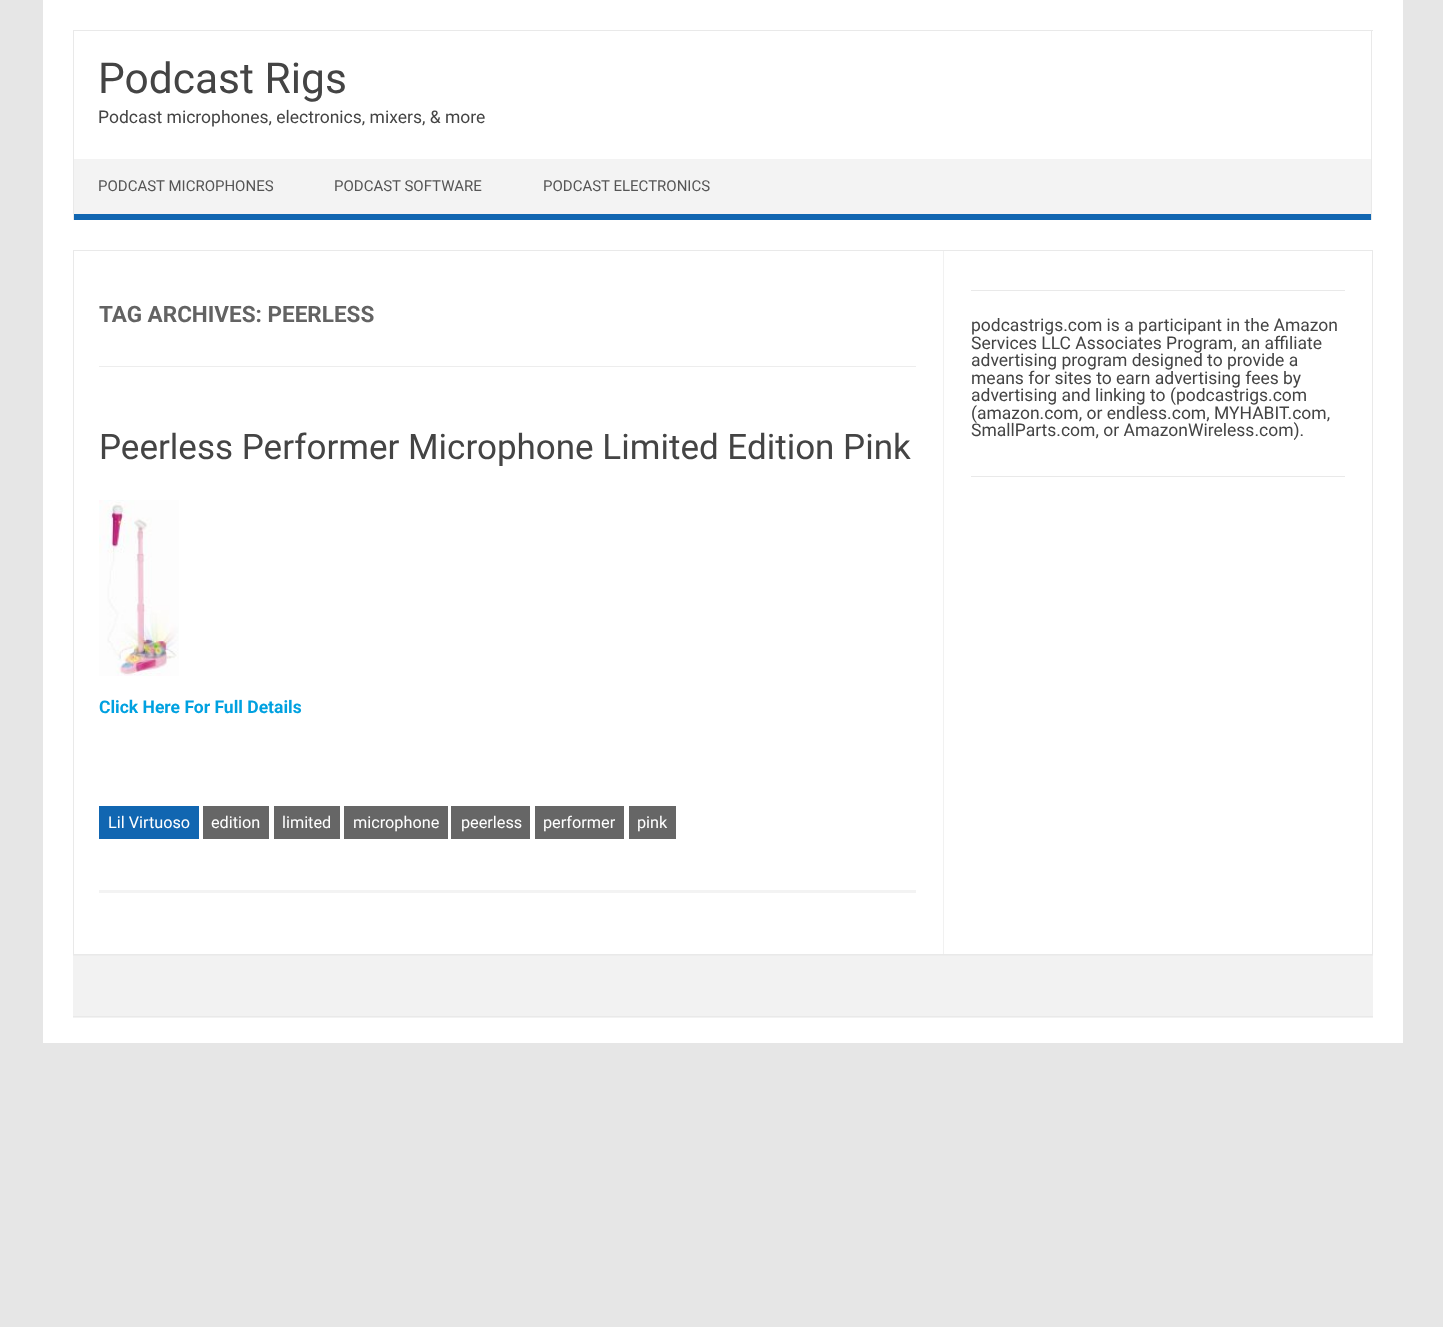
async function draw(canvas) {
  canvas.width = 1443
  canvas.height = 1327
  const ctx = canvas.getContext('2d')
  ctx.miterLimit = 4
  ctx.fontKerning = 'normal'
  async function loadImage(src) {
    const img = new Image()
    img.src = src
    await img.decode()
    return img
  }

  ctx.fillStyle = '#e6e6e6'
  ctx.fillRect(0, 0, 1443, 1327)
  ctx.fillStyle = '#fff'
  ctx.fillRect(43, 0, 1360, 1043)
  ctx.fillStyle = '#e9e9e9'
  ctx.fillRect(73, 30, 1300, 1)
  ctx.fillRect(1371, 30, 1, 190)
  ctx.fillRect(73, 30, 1, 190)
  ctx.font = '42.5px Roboto'
  ctx.fillStyle = '#444'
  ctx.fillText('Podcast Rigs', 98, 93)
  ctx.font = '17.5px Roboto'
  ctx.fillText('Podcast microphones, electronics, mixers, & more', 98, 123)
  ctx.fillStyle = '#f3f3f3'
  ctx.fillRect(74, 159, 1297, 55)
  ctx.fillStyle = '#1166b1'
  ctx.fillRect(74, 214, 1297, 6)
  ctx.font = '15px Roboto'
  ctx.fillStyle = '#555'
  ctx.fillText('PODCAST MICROPHONES', 98, 191)
  ctx.fillText('PODCAST SOFTWARE', 334, 191)
  ctx.fillText('PODCAST ELECTRONICS', 543, 191)
  ctx.strokeStyle = '#e9e9e9'
  ctx.strokeRect(73.5, 250.5, 1299, 704)
  ctx.fillStyle = '#f1f1f1'
  ctx.fillRect(943, 251, 1, 703)
  ctx.fillStyle = '#ededed'
  ctx.fillRect(99, 366, 817, 1)
  ctx.font = 'bold 22.5px Roboto'
  ctx.fillStyle = '#636363'
  ctx.fillText('TAG ARCHIVES: PEERLESS', 99, 322)
  ctx.fillStyle = '#f3f3f3'
  ctx.fillRect(99, 890, 817, 3)
  ctx.font = '35px Roboto'
  ctx.fillStyle = '#444'
  ctx.fillText('Peerless Performer Microphone Limited Edition Pink', 99, 459)
  ctx.drawImage(await loadImage('image0.png'), 99, 500, 80, 176)
  ctx.font = 'bold 17.5px Roboto'
  ctx.fillStyle = '#00a1e0'
  ctx.fillText('Click Here For Full Details', 99, 713)
  ctx.fillStyle = '#1166b1'
  ctx.fillRect(99, 806, 100, 33)
  ctx.font = '16.25px Roboto'
  ctx.fillStyle = '#fff'
  ctx.fillText('Lil Virtuoso', 108, 828)
  ctx.fillStyle = '#666'
  ctx.fillRect(203, 806, 66, 33)
  ctx.fillStyle = '#fff'
  ctx.fillText('edition', 211, 828)
  ctx.fillStyle = '#666'
  ctx.fillRect(274, 806, 66, 33)
  ctx.fillStyle = '#fff'
  ctx.fillText('limited', 282, 828)
  ctx.fillStyle = '#666'
  ctx.fillRect(344, 806, 104, 33)
  ctx.fillStyle = '#fff'
  ctx.fillText('microphone', 353, 828)
  ctx.fillStyle = '#666'
  ctx.fillRect(451, 806, 79, 33)
  ctx.fillStyle = '#fff'
  ctx.fillText('peerless', 461, 828)
  ctx.fillStyle = '#666'
  ctx.fillRect(535, 806, 89, 33)
  ctx.fillStyle = '#fff'
  ctx.fillText('performer', 543, 828)
  ctx.fillStyle = '#666'
  ctx.fillRect(629, 806, 47, 33)
  ctx.fillStyle = '#fff'
  ctx.fillText('pink', 637, 828)
  ctx.fillStyle = '#e9e9e9'
  ctx.fillRect(971, 290, 374, 1)
  ctx.font = '17.5px Roboto'
  ctx.fillStyle = '#444'
  ctx.fillText('podcastrigs.com is a participant in the Amazon', 971, 331)
  ctx.fillText('Services LLC Associates Program, an affiliate', 971, 349)
  ctx.fillText('advertising program designed to provide a', 971, 366)
  ctx.fillText('means for sites to earn advertising fees by', 971, 384)
  ctx.fillText('advertising and linking to (podcastrigs.com', 971, 401)
  ctx.fillText('(amazon.com, or endless.com, MYHABIT.com,', 971, 419)
  ctx.fillText('SmallParts.com, or AmazonWireless.com).', 971, 436)
  ctx.fillStyle = '#e9e9e9'
  ctx.fillRect(971, 476, 374, 1)
  ctx.fillStyle = '#f2f2f2'
  ctx.fillRect(73, 956, 1300, 62)
  ctx.fillStyle = '#ededed'
  ctx.fillRect(73, 955, 1300, 1)
  ctx.fillStyle = '#e9e9e9'
  ctx.fillRect(73, 1016, 1300, 1)
}

draw(document.querySelector('canvas'))
